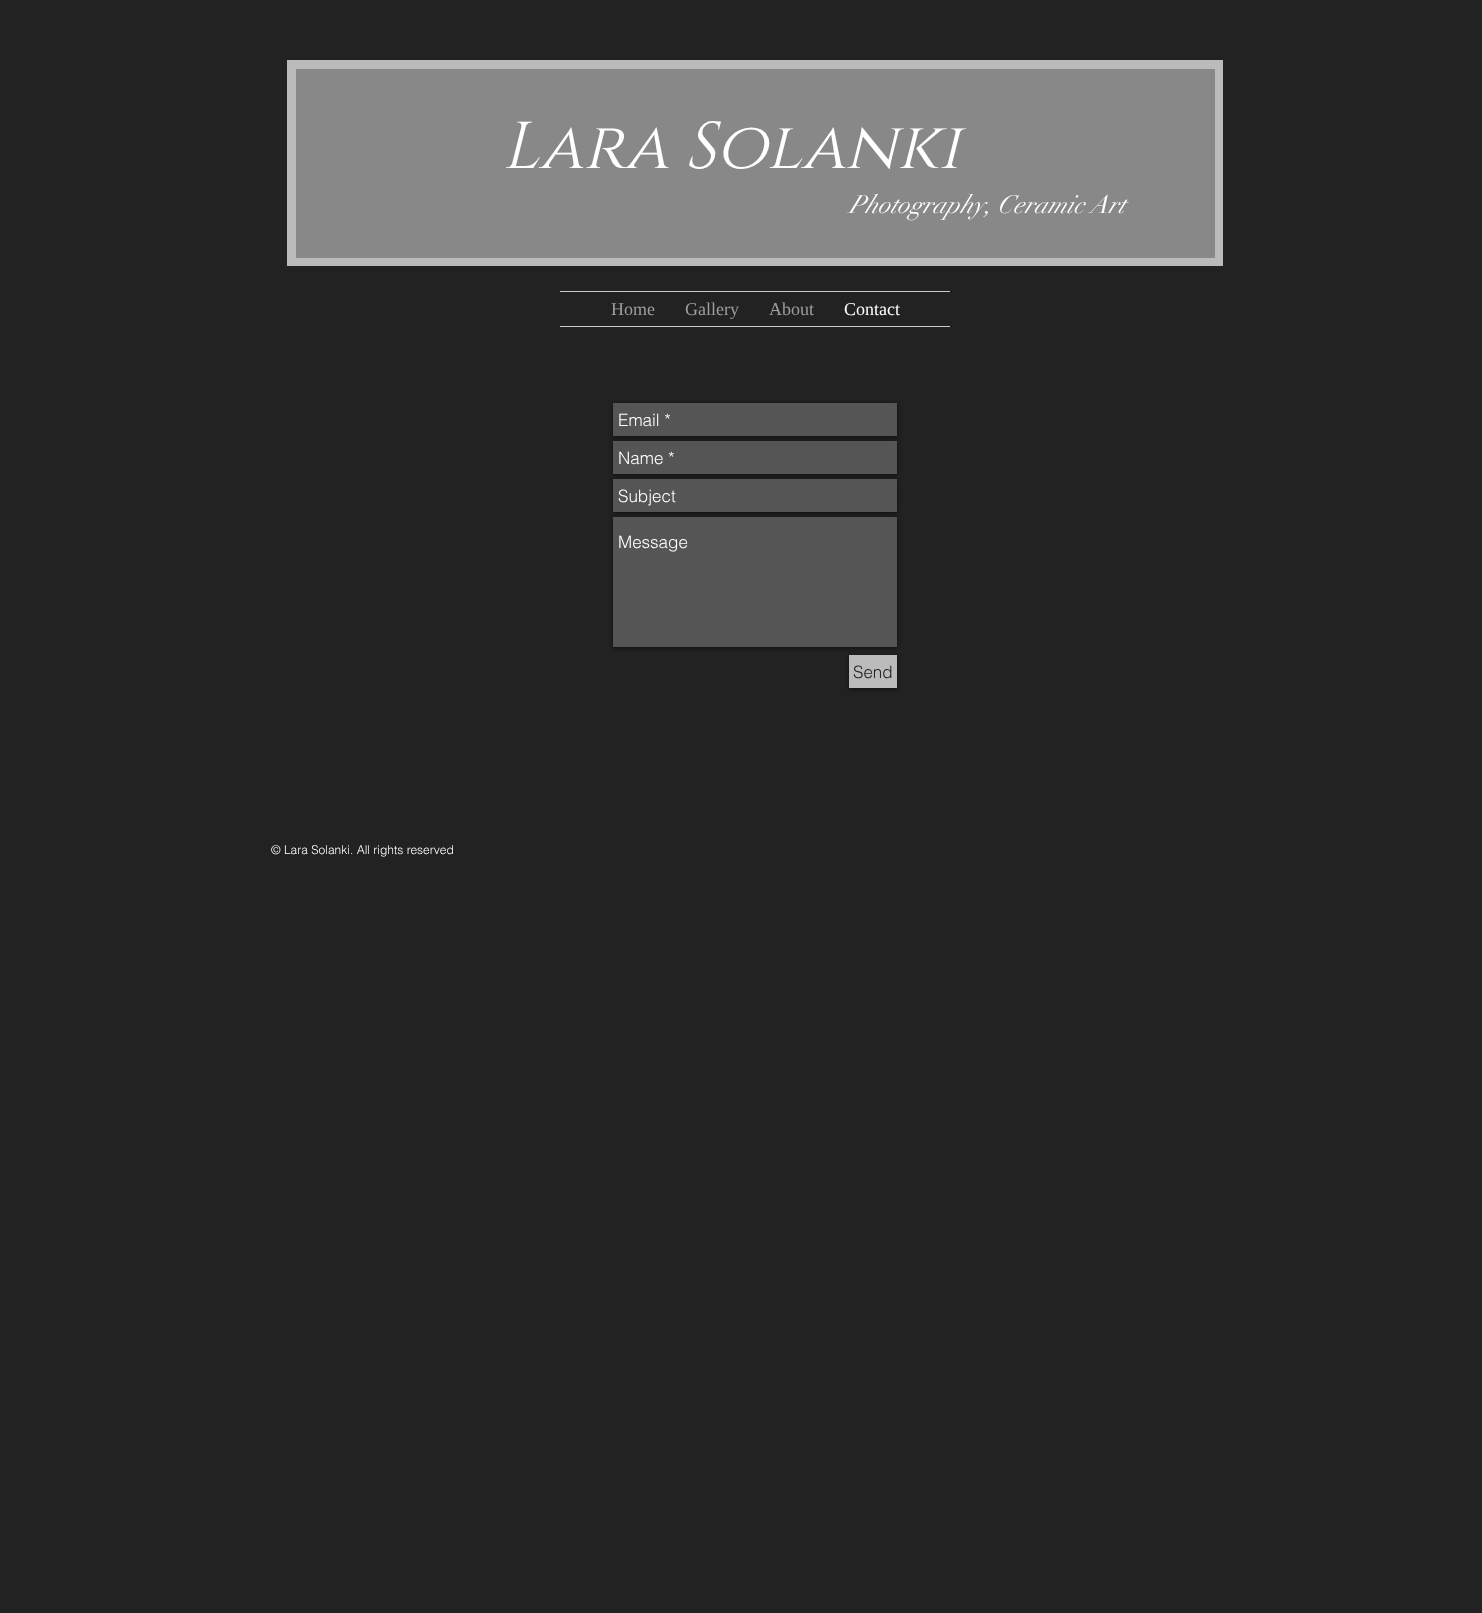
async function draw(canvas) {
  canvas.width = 1482
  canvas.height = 1613
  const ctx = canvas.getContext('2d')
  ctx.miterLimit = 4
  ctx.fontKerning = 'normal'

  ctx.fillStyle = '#222'
  ctx.fillRect(0, 0, 1482, 1613)
  ctx.fillStyle = '#bbb'
  ctx.fillRect(287, 60, 936, 206)
  ctx.fillStyle = '#888'
  ctx.fillRect(296, 69, 919, 189)
  ctx.font = 'italic 66px Cinzel'
  ctx.fillStyle = '#fff'
  ctx.fillText('Lara Solanki', 502, 168)
  ctx.font = 'italic 25px didot'
  ctx.fillText('Photography, Ceramic Art', 849, 213)
  ctx.fillStyle = '#cacaca'
  ctx.fillRect(560, 291, 390, 1)
  ctx.fillRect(560, 326, 390, 1)
  ctx.font = '18px Liberation Serif'
  ctx.fillStyle = '#9e9e9e'
  ctx.fillText('Home', 611, 315)
  ctx.fillText('Gallery', 685, 315)
  ctx.fillText('About', 769, 315)
  ctx.fillStyle = '#fff'
  ctx.fillText('Contact', 844, 315)
  ctx.fillStyle = '#00000099'
  ctx.filter = 'blur(2px)'
  ctx.beginPath()
  ctx.rect(613, 404, 284, 33)
  ctx.fill()
  ctx.filter = 'none'
  ctx.fillStyle = '#555'
  ctx.fillRect(613, 403, 284, 33)
  ctx.font = '300 17px helvetica'
  ctx.fillStyle = '#fff'
  ctx.fillText('Email *', 618, 426)
  ctx.fillStyle = '#00000099'
  ctx.filter = 'blur(2px)'
  ctx.beginPath()
  ctx.rect(613, 442, 284, 33)
  ctx.fill()
  ctx.filter = 'none'
  ctx.fillStyle = '#555'
  ctx.fillRect(613, 441, 284, 33)
  ctx.fillStyle = '#fff'
  ctx.fillText('Name *', 618, 464)
  ctx.fillStyle = '#00000099'
  ctx.filter = 'blur(2px)'
  ctx.beginPath()
  ctx.rect(613, 480, 284, 33)
  ctx.fill()
  ctx.filter = 'none'
  ctx.fillStyle = '#555'
  ctx.fillRect(613, 479, 284, 33)
  ctx.fillStyle = '#fff'
  ctx.fillText('Subject', 618, 502)
  ctx.fillStyle = '#00000099'
  ctx.filter = 'blur(2px)'
  ctx.beginPath()
  ctx.rect(613, 518, 284, 130)
  ctx.fill()
  ctx.filter = 'none'
  ctx.fillStyle = '#555'
  ctx.fillRect(613, 517, 284, 130)
  ctx.fillStyle = '#fff'
  ctx.fillText('Message', 618, 548)
  ctx.fillStyle = '#00000099'
  ctx.filter = 'blur(2px)'
  ctx.beginPath()
  ctx.rect(849, 656, 48, 33)
  ctx.fill()
  ctx.filter = 'none'
  ctx.fillStyle = '#bbb'
  ctx.fillRect(849, 655, 48, 33)
  ctx.fillStyle = '#222'
  ctx.fillText('Send', 853, 678)
  ctx.font = '300 12px helvetica'
  ctx.fillStyle = '#fff'
  ctx.fillText('© Lara Solanki. All rights reserved', 271, 854)
}

draw(document.querySelector('canvas'))
